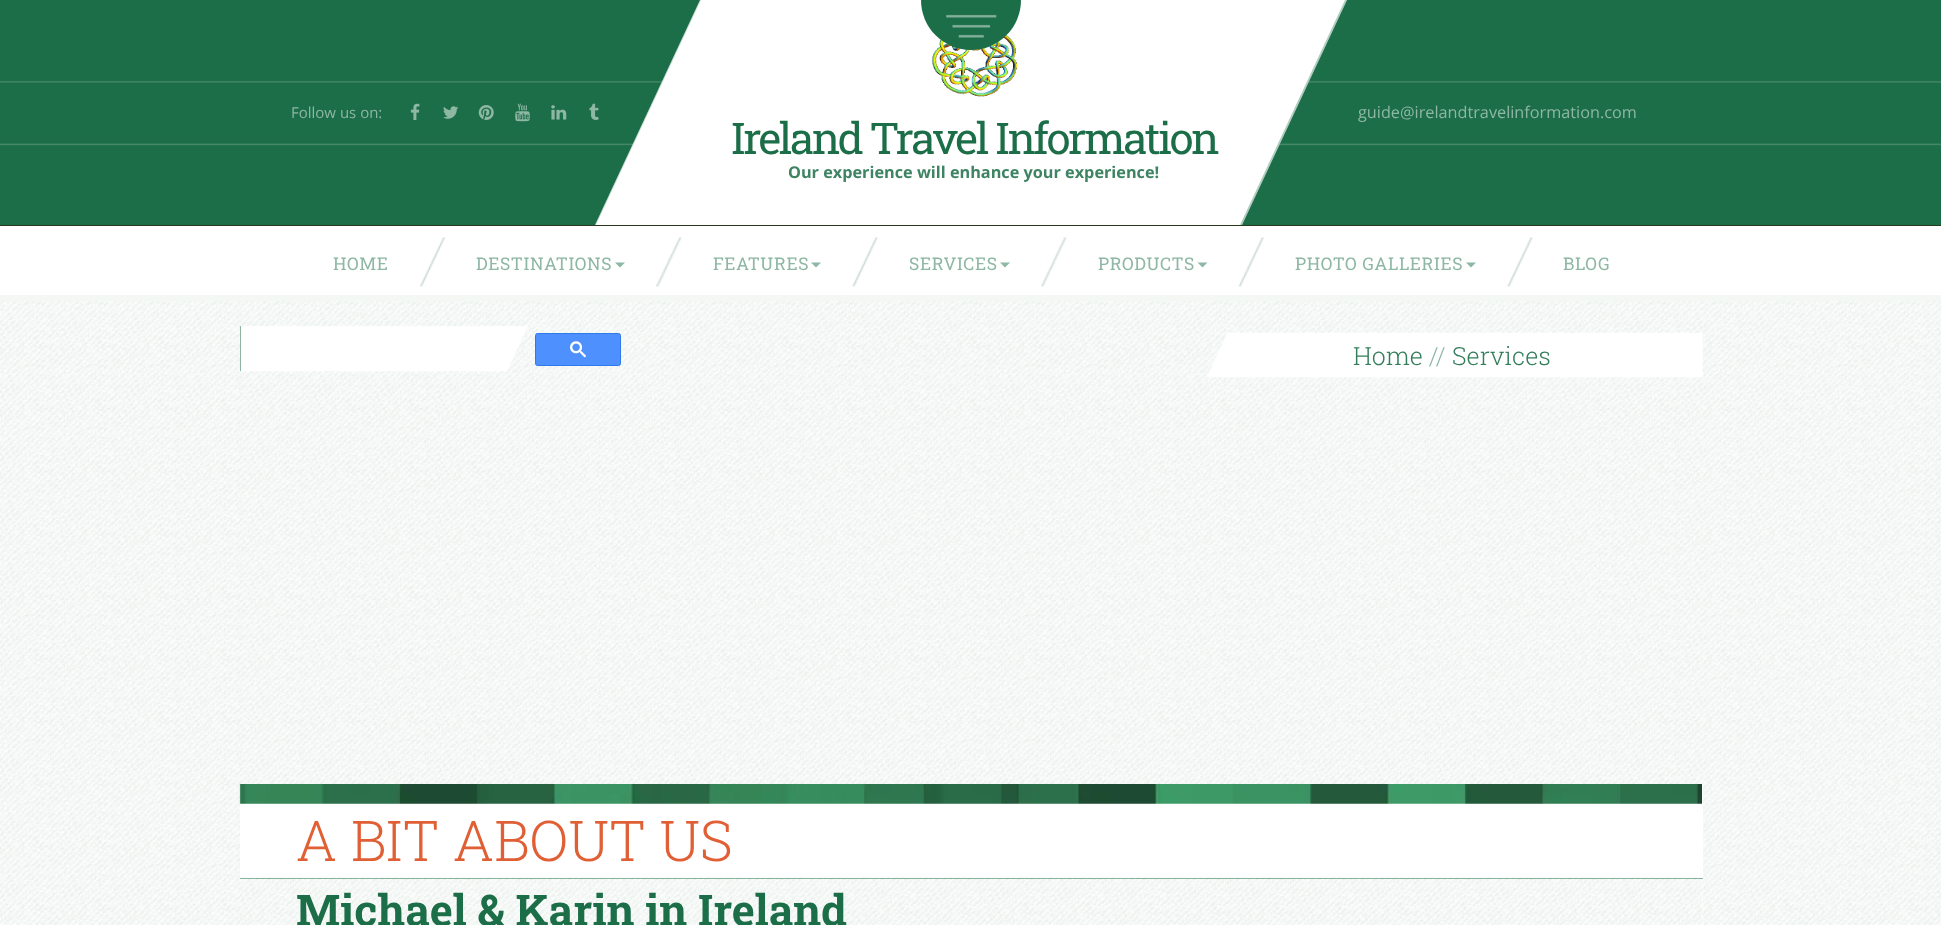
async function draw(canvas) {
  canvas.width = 1941
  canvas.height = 925
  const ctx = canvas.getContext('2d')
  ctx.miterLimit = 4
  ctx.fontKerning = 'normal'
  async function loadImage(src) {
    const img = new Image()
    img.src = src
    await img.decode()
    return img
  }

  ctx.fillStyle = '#fff'
  ctx.fillRect(0, 0, 1941, 925)
  ctx.drawImage(await loadImage('image0.png'), 0, 301, 1941, 624)
  ctx.drawImage(await loadImage('image2.png'), 0, 0, 1941, 225)
  ctx.drawImage(await loadImage('image8.png'), 589, 103, 10, 17)
  ctx.beginPath()
  ctx.moveTo(700, 0)
  ctx.lineTo(1347, 0)
  ctx.lineTo(1242, 225)
  ctx.lineTo(595, 225)
  ctx.closePath()
  ctx.fill()
  ctx.drawImage(await loadImage('image9.png'), 932, 35, 86, 62)
  ctx.fillStyle = '#1c6e48'
  ctx.beginPath()
  ctx.arc(971, 0, 50, 0, 2 * Math.PI)
  ctx.fill()
  ctx.drawImage(await loadImage('image1.png'), 946, 14, 51, 24)
  ctx.fillStyle = '#293a1e'
  ctx.fillRect(0, 225, 1941, 1)
  ctx.font = '15px Open Sans'
  ctx.fillStyle = '#8eb7a4'
  ctx.fillText('Follow us on:', 291, 118)
  ctx.drawImage(await loadImage('image3.png'), 410, 103, 10, 17)
  ctx.drawImage(await loadImage('image4.png'), 443, 106, 16, 13)
  ctx.drawImage(await loadImage('image5.png'), 478, 105, 16, 15)
  ctx.drawImage(await loadImage('image6.png'), 515, 103, 15, 19)
  ctx.drawImage(await loadImage('image7.png'), 551, 105, 16, 15)
  ctx.font = '16.25px Open Sans'
  ctx.fillText('guide@irelandtravelinformation.com', 1358, 118)
  ctx.fillStyle = '#1c6e4859'
  ctx.beginPath()
  ctx.moveTo(1345, 0)
  ctx.lineTo(1347, 0)
  ctx.lineTo(1242, 225)
  ctx.lineTo(1240, 225)
  ctx.closePath()
  ctx.fill()
  ctx.fillStyle = '#1c6e4840'
  ctx.beginPath()
  ctx.moveTo(700, 0)
  ctx.lineTo(701, 0)
  ctx.lineTo(596, 225)
  ctx.lineTo(595, 225)
  ctx.closePath()
  ctx.fill()
  ctx.letterSpacing = '-2.5px'
  ctx.font = '43.75px Roboto Slab'
  ctx.fillStyle = '#1c6e48'
  ctx.fillText('Ireland Travel Information', 731, 154)
  ctx.letterSpacing = '0px'
  ctx.font = 'bold 16.25px Open Sans'
  ctx.fillStyle = '#3e8463'
  ctx.fillText('Our experience will enhance your experience!', 788, 178)
  ctx.fillStyle = '#f3f8f4'
  ctx.fillRect(0, 295, 1941, 6)
  ctx.letterSpacing = '0.6px'
  ctx.font = '17.5px Roboto Slab'
  ctx.fillStyle = '#8eb7a4'
  ctx.fillText('HOME', 333, 270)
  ctx.drawImage(await loadImage('image10.png'), 420, 237, 25, 50)
  ctx.fillText('DESTINATIONS', 476, 270)
  ctx.beginPath()
  ctx.moveTo(615, 262.5)
  ctx.lineTo(625, 262.5)
  ctx.lineTo(620, 267.5)
  ctx.closePath()
  ctx.fill()
  ctx.drawImage(await loadImage('image11.png'), 656, 237, 26, 50)
  ctx.fillText('FEATURES', 713, 270)
  ctx.beginPath()
  ctx.moveTo(811, 262.5)
  ctx.lineTo(821, 262.5)
  ctx.lineTo(816, 267.5)
  ctx.closePath()
  ctx.fill()
  ctx.drawImage(await loadImage('image12.png'), 852, 237, 26, 50)
  ctx.fillText('SERVICES', 909, 270)
  ctx.beginPath()
  ctx.moveTo(1000, 262.5)
  ctx.lineTo(1010, 262.5)
  ctx.lineTo(1005, 267.5)
  ctx.closePath()
  ctx.fill()
  ctx.drawImage(await loadImage('image13.png'), 1041, 237, 26, 50)
  ctx.fillText('PRODUCTS', 1098, 270)
  ctx.beginPath()
  ctx.moveTo(1197.5, 262.5)
  ctx.lineTo(1207.5, 262.5)
  ctx.lineTo(1202.5, 267.5)
  ctx.closePath()
  ctx.fill()
  ctx.drawImage(await loadImage('image14.png'), 1238, 237, 26, 50)
  ctx.fillText('PHOTO GALLERIES', 1295, 270)
  ctx.beginPath()
  ctx.moveTo(1466, 262.5)
  ctx.lineTo(1476, 262.5)
  ctx.lineTo(1471, 267.5)
  ctx.closePath()
  ctx.fill()
  ctx.drawImage(await loadImage('image12.png'), 1507, 237, 26, 50)
  ctx.fillText('BLOG', 1563, 270)
  ctx.drawImage(await loadImage('image15.png'), 240, 326, 288, 46)
  ctx.fillStyle = '#1c6e4880'
  ctx.fillRect(240, 326, 1, 45)
  ctx.fillStyle = '#4d90fe'
  ctx.beginPath()
  ctx.roundRect(535.5, 333.5, 85, 32, 2)
  ctx.fill()
  ctx.strokeStyle = '#3079ed'
  ctx.stroke()
  ctx.drawImage(await loadImage('image16.png'), 570, 341, 16, 17)
  ctx.drawImage(await loadImage('image17.png'), 1207, 332, 496, 46)
  ctx.letterSpacing = '0px'
  ctx.font = '300 25px Roboto Slab'
  ctx.fillStyle = '#337d5a'
  ctx.fillText('Home', 1353, 365)
  ctx.fillStyle = '#8eb7a4'
  ctx.fillText('//', 1429, 365)
  ctx.fillStyle = '#337d5a'
  ctx.fillText('Services', 1452, 365)
  ctx.fillStyle = '#fff'
  ctx.fillRect(240, 784, 1463, 141)
  ctx.drawImage(await loadImage('image18.png'), 239, 784, 1463, 20)
  ctx.font = '300 56.25px Roboto Slab'
  ctx.fillStyle = '#e05f35'
  ctx.fillText('A BIT ABOUT US', 296, 861)
  ctx.drawImage(await loadImage('image19.png'), 240, 877, 1463, 48)
  ctx.fillStyle = '#1c6e4880'
  ctx.fillRect(240, 878, 1463, 1)
  ctx.font = 'bold 43.75px Roboto Slab'
  ctx.fillStyle = '#1c6e48'
  ctx.fillText('Michael & Karin in Ireland', 296, 926)
}

draw(document.querySelector('canvas'))
